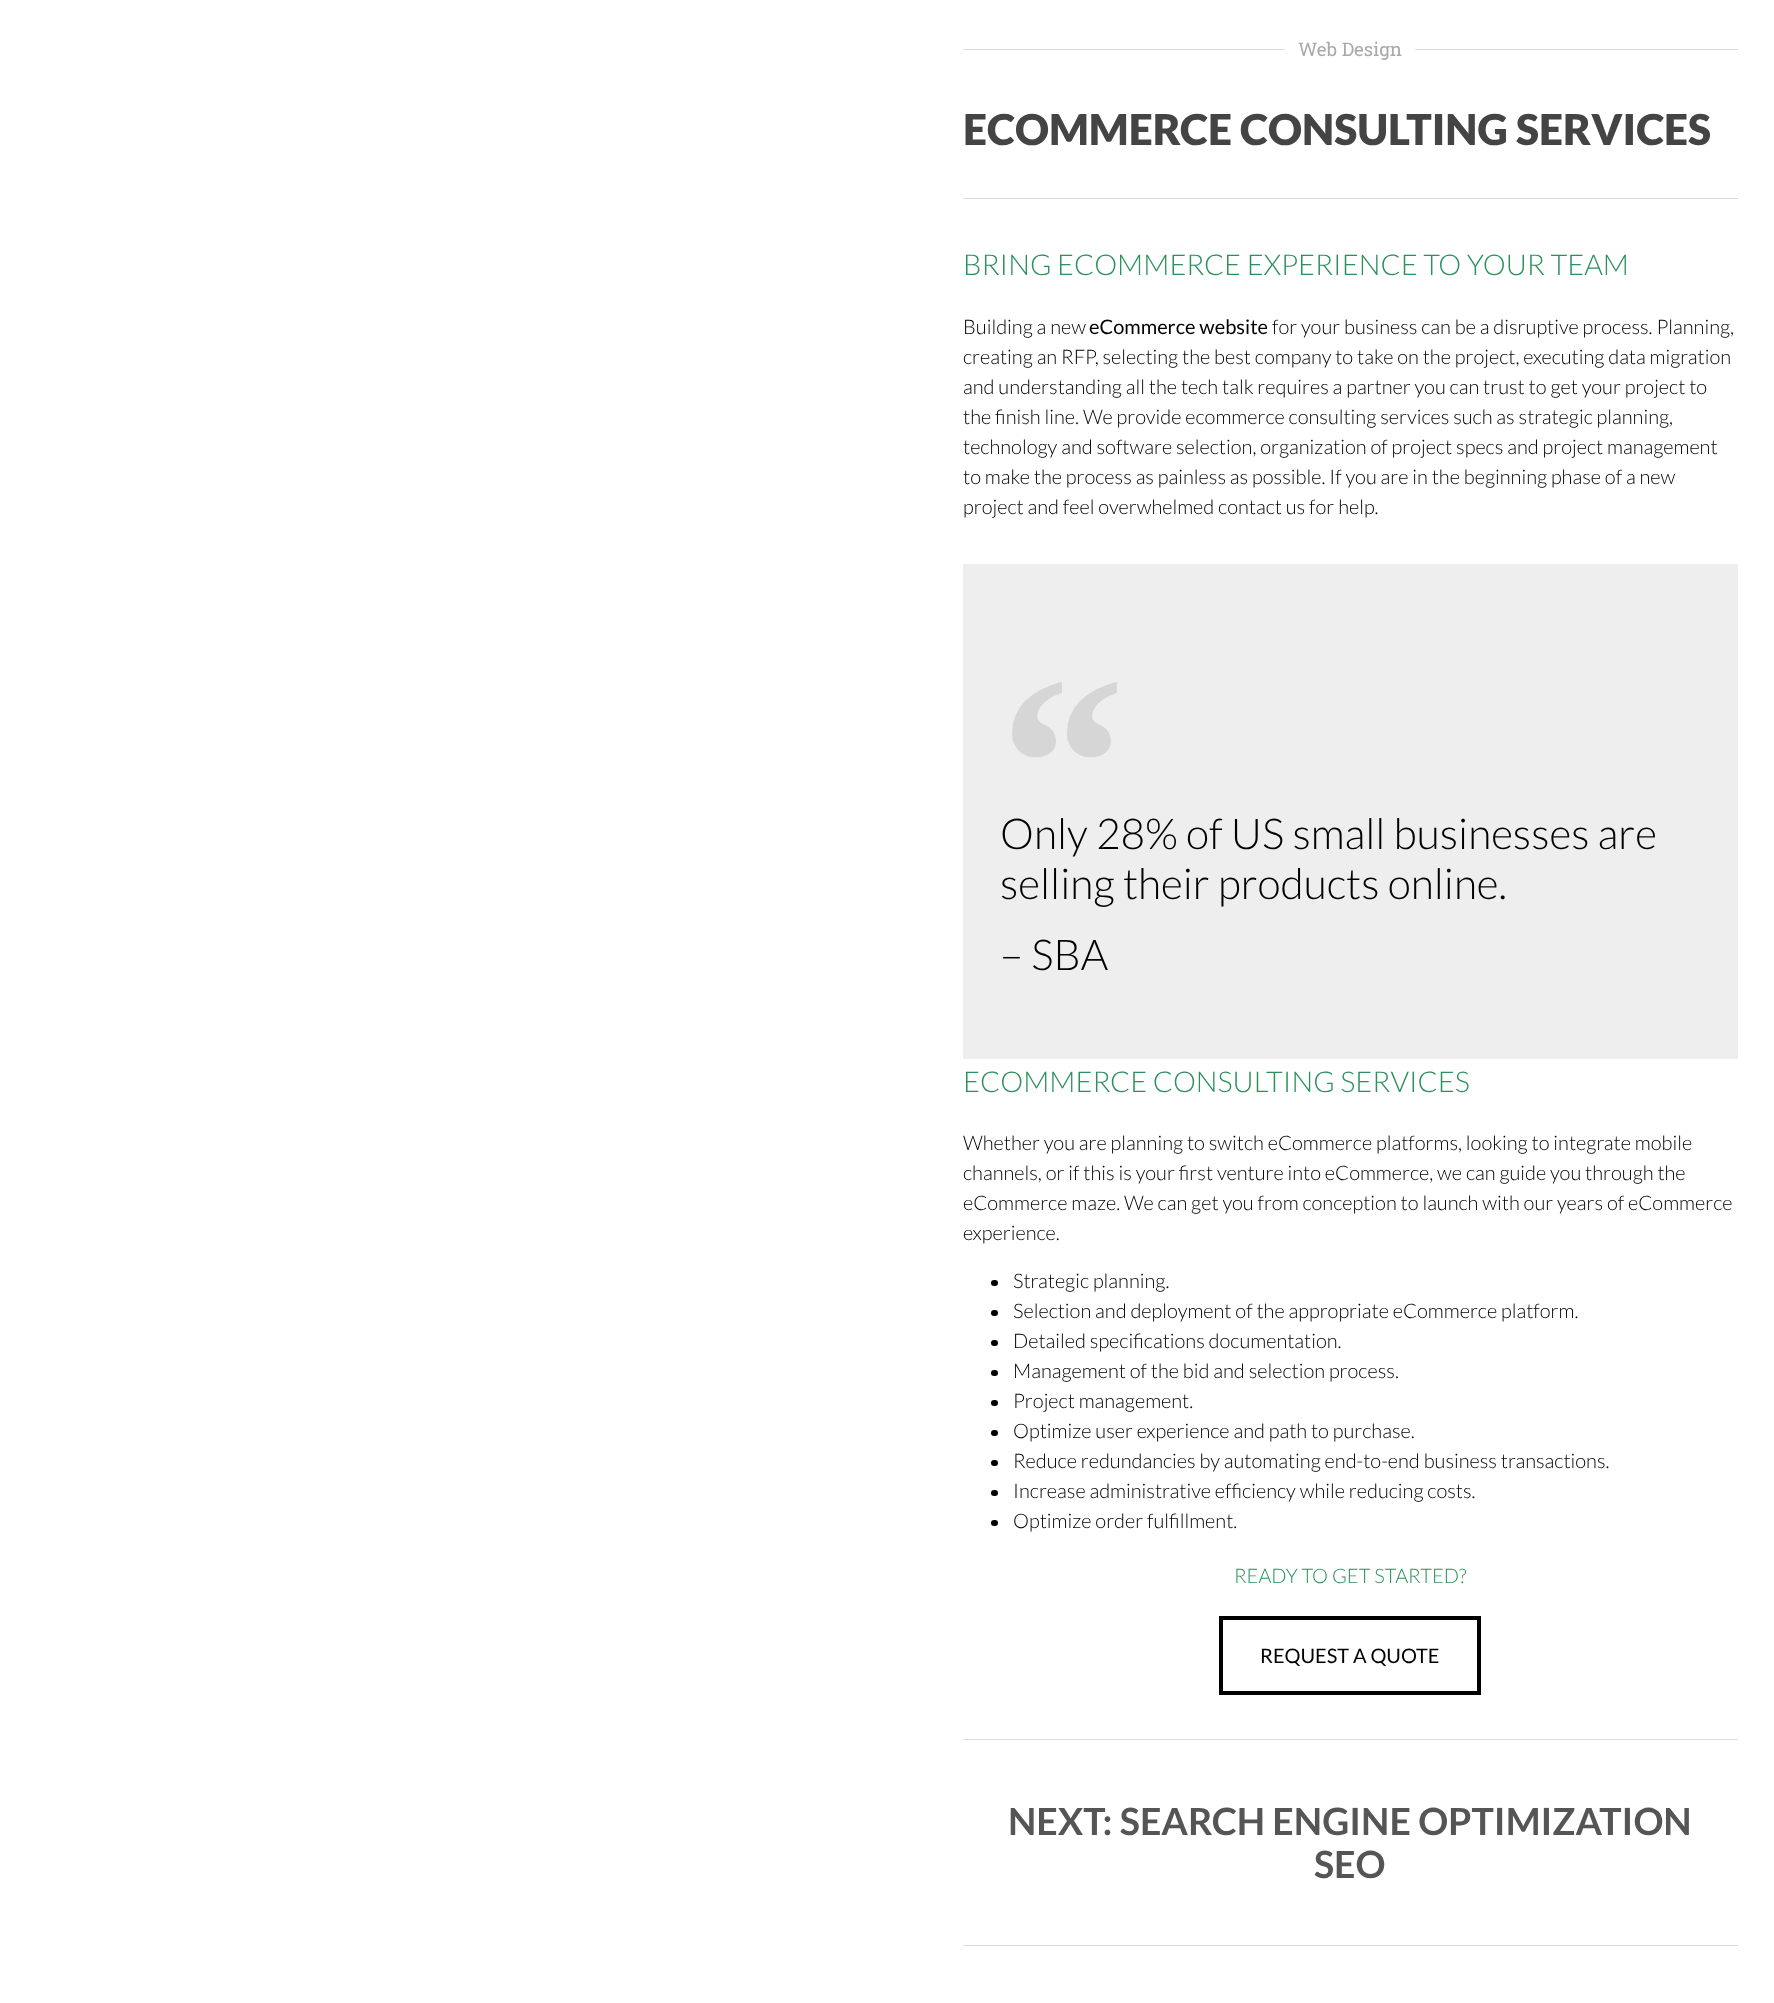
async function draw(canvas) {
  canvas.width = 1774
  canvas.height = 2003
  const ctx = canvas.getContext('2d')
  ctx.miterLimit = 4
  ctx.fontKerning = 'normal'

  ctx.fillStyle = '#fff'
  ctx.fillRect(0, 0, 1774, 2003)
  ctx.fillStyle = '#ddd'
  ctx.fillRect(963, 49, 322, 1)
  ctx.font = '18.75px Roboto Slab'
  ctx.fillStyle = '#aaa'
  ctx.fillText('Web Design', 1298, 56)
  ctx.fillStyle = '#ddd'
  ctx.fillRect(1415, 49, 323, 1)
  ctx.font = '900 42.5px Lato'
  ctx.fillStyle = '#444'
  ctx.fillText('ECOMMERCE CONSULTING SERVICES', 963, 145)
  ctx.fillStyle = '#ddd'
  ctx.fillRect(963, 198, 775, 1)
  ctx.font = '300 28.75px Lato'
  ctx.fillStyle = '#2b905a'
  ctx.fillText('BRING ECOMMERCE EXPERIENCE TO YOUR TEAM', 963, 275)
  ctx.font = '300 20px Lato'
  ctx.fillStyle = '#000'
  ctx.fillText('Building a new', 963, 334)
  ctx.font = '20px Lato'
  ctx.fillText('eCommerce website', 1089, 334)
  ctx.font = '300 20px Lato'
  ctx.fillText('for your business can be a disruptive process. Planning,', 1272, 334)
  ctx.fillText('creating an RFP, selecting the best company to take on the project, executing data migration', 963, 364)
  ctx.fillText('and understanding all the tech talk requires a partner you can trust to get your project to', 963, 394)
  ctx.fillText('the finish line. We provide ecommerce consulting services such as strategic planning,', 963, 424)
  ctx.fillText('technology and software selection, organization of project specs and project management', 963, 454)
  ctx.fillText('to make the process as painless as possible. If you are in the beginning phase of a new', 963, 484)
  ctx.fillText('project and feel overwhelmed contact us for help.', 963, 514)
  ctx.fillStyle = '#eee'
  ctx.fillRect(963, 564, 775, 495)
  ctx.font = 'bold 250px Liberation Serif'
  ctx.fillStyle = '#d6d6d6'
  ctx.fillText('“', 1000, 848)
  ctx.font = '300 42.5px Lato'
  ctx.fillStyle = '#000'
  ctx.fillText('Only 28% of US small businesses are', 1000, 849)
  ctx.fillText('selling their products online.', 1000, 899)
  ctx.fillText('– SBA', 1000, 970)
  ctx.font = '300 28.75px Lato'
  ctx.fillStyle = '#2b905a'
  ctx.fillText('ECOMMERCE CONSULTING SERVICES', 963, 1092)
  ctx.font = '300 20px Lato'
  ctx.fillStyle = '#000'
  ctx.fillText('Whether you are planning to switch eCommerce platforms, looking to integrate mobile', 963, 1150)
  ctx.fillText('channels, or if this is your first venture into eCommerce, we can guide you through the', 963, 1180)
  ctx.fillText('eCommerce maze. We can get you from conception to launch with our years of eCommerce', 963, 1210)
  ctx.fillText('experience.', 963, 1240)
  ctx.beginPath()
  ctx.roundRect(991, 1280, 7, 6, 3)
  ctx.fill()
  ctx.fillText('Strategic planning.', 1013, 1288)
  ctx.beginPath()
  ctx.roundRect(991, 1310, 7, 6, 3)
  ctx.fill()
  ctx.fillText('Selection and deployment of the appropriate eCommerce platform.', 1013, 1318)
  ctx.beginPath()
  ctx.roundRect(991, 1340, 7, 6, 3)
  ctx.fill()
  ctx.fillText('Detailed specifications documentation.', 1013, 1348)
  ctx.beginPath()
  ctx.roundRect(991, 1370, 7, 6, 3)
  ctx.fill()
  ctx.fillText('Management of the bid and selection process.', 1013, 1378)
  ctx.beginPath()
  ctx.roundRect(991, 1400, 7, 6, 3)
  ctx.fill()
  ctx.fillText('Project management.', 1013, 1408)
  ctx.beginPath()
  ctx.roundRect(991, 1430, 7, 6, 3)
  ctx.fill()
  ctx.fillText('Optimize user experience and path to purchase.', 1013, 1438)
  ctx.beginPath()
  ctx.roundRect(991, 1460, 7, 6, 3)
  ctx.fill()
  ctx.fillText('Reduce redundancies by automating end-to-end business transactions.', 1013, 1468)
  ctx.beginPath()
  ctx.roundRect(991, 1490, 7, 6, 3)
  ctx.fill()
  ctx.fillText('Increase administrative efficiency while reducing costs.', 1013, 1498)
  ctx.beginPath()
  ctx.roundRect(991, 1520, 7, 6, 3)
  ctx.fill()
  ctx.fillText('Optimize order fulfillment.', 1013, 1528)
  ctx.fillStyle = '#2b905a'
  ctx.fillText('READY TO GET STARTED?', 1234, 1583)
  ctx.strokeStyle = '#000'
  ctx.lineWidth = 4
  ctx.strokeRect(1221, 1618, 258, 75)
  ctx.font = '20px Lato'
  ctx.fillStyle = '#000'
  ctx.fillText('REQUEST A QUOTE', 1260, 1663)
  ctx.fillStyle = '#ddd'
  ctx.fillRect(963, 1739, 775, 1)
  ctx.font = 'bold 37.5px Lato'
  ctx.fillStyle = '#555'
  ctx.fillText('NEXT: SEARCH ENGINE OPTIMIZATION', 1008, 1835)
  ctx.fillText('SEO', 1314, 1878)
  ctx.fillStyle = '#ddd'
  ctx.fillRect(963, 1945, 775, 1)
}

draw(document.querySelector('canvas'))
